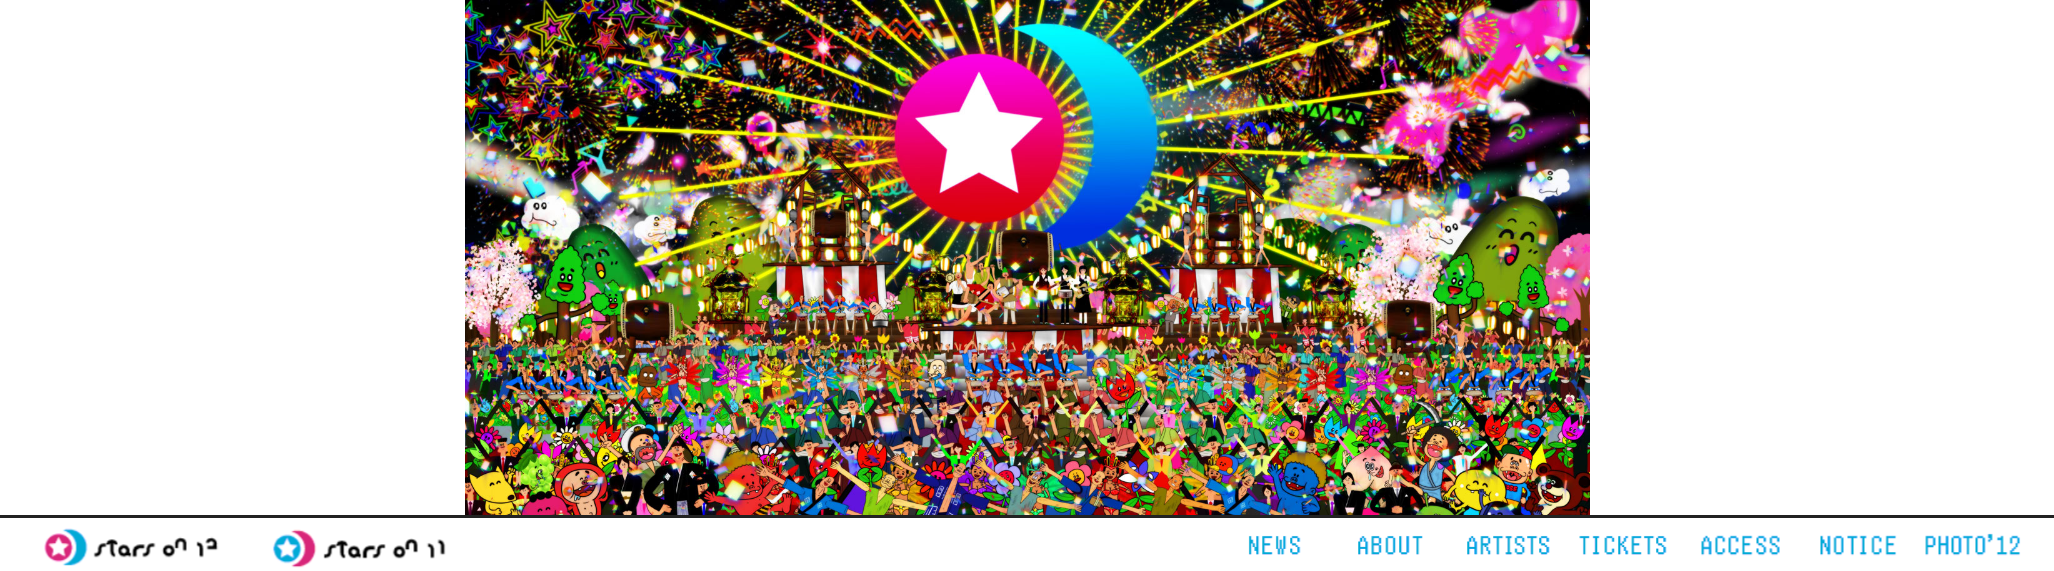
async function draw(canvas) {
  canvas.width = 2054
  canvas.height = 571
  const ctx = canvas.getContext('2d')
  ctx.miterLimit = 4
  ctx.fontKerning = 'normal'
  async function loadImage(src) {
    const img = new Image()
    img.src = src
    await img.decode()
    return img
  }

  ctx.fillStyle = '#fff'
  ctx.fillRect(0, 0, 2054, 571)
  ctx.drawImage(await loadImage('image0.png'), 465, 0, 1125, 515)
  ctx.fillStyle = '#222'
  ctx.fillRect(0, 515, 2054, 3)
  ctx.drawImage(await loadImage('image1.png'), 44, 528, 175, 38)
  ctx.drawImage(await loadImage('image2.png'), 272, 529, 174, 39)
  ctx.drawImage(await loadImage('image3.png'), 1248, 535, 53, 20)
  ctx.drawImage(await loadImage('image4.png'), 1358, 535, 65, 20)
  ctx.drawImage(await loadImage('image5.png'), 1467, 535, 83, 20)
  ctx.drawImage(await loadImage('image6.png'), 1579, 535, 88, 20)
  ctx.drawImage(await loadImage('image7.png'), 1701, 535, 79, 21)
  ctx.drawImage(await loadImage('image8.png'), 1820, 535, 77, 21)
  ctx.drawImage(await loadImage('image9.png'), 1925, 533, 96, 23)
}

draw(document.querySelector('canvas'))
